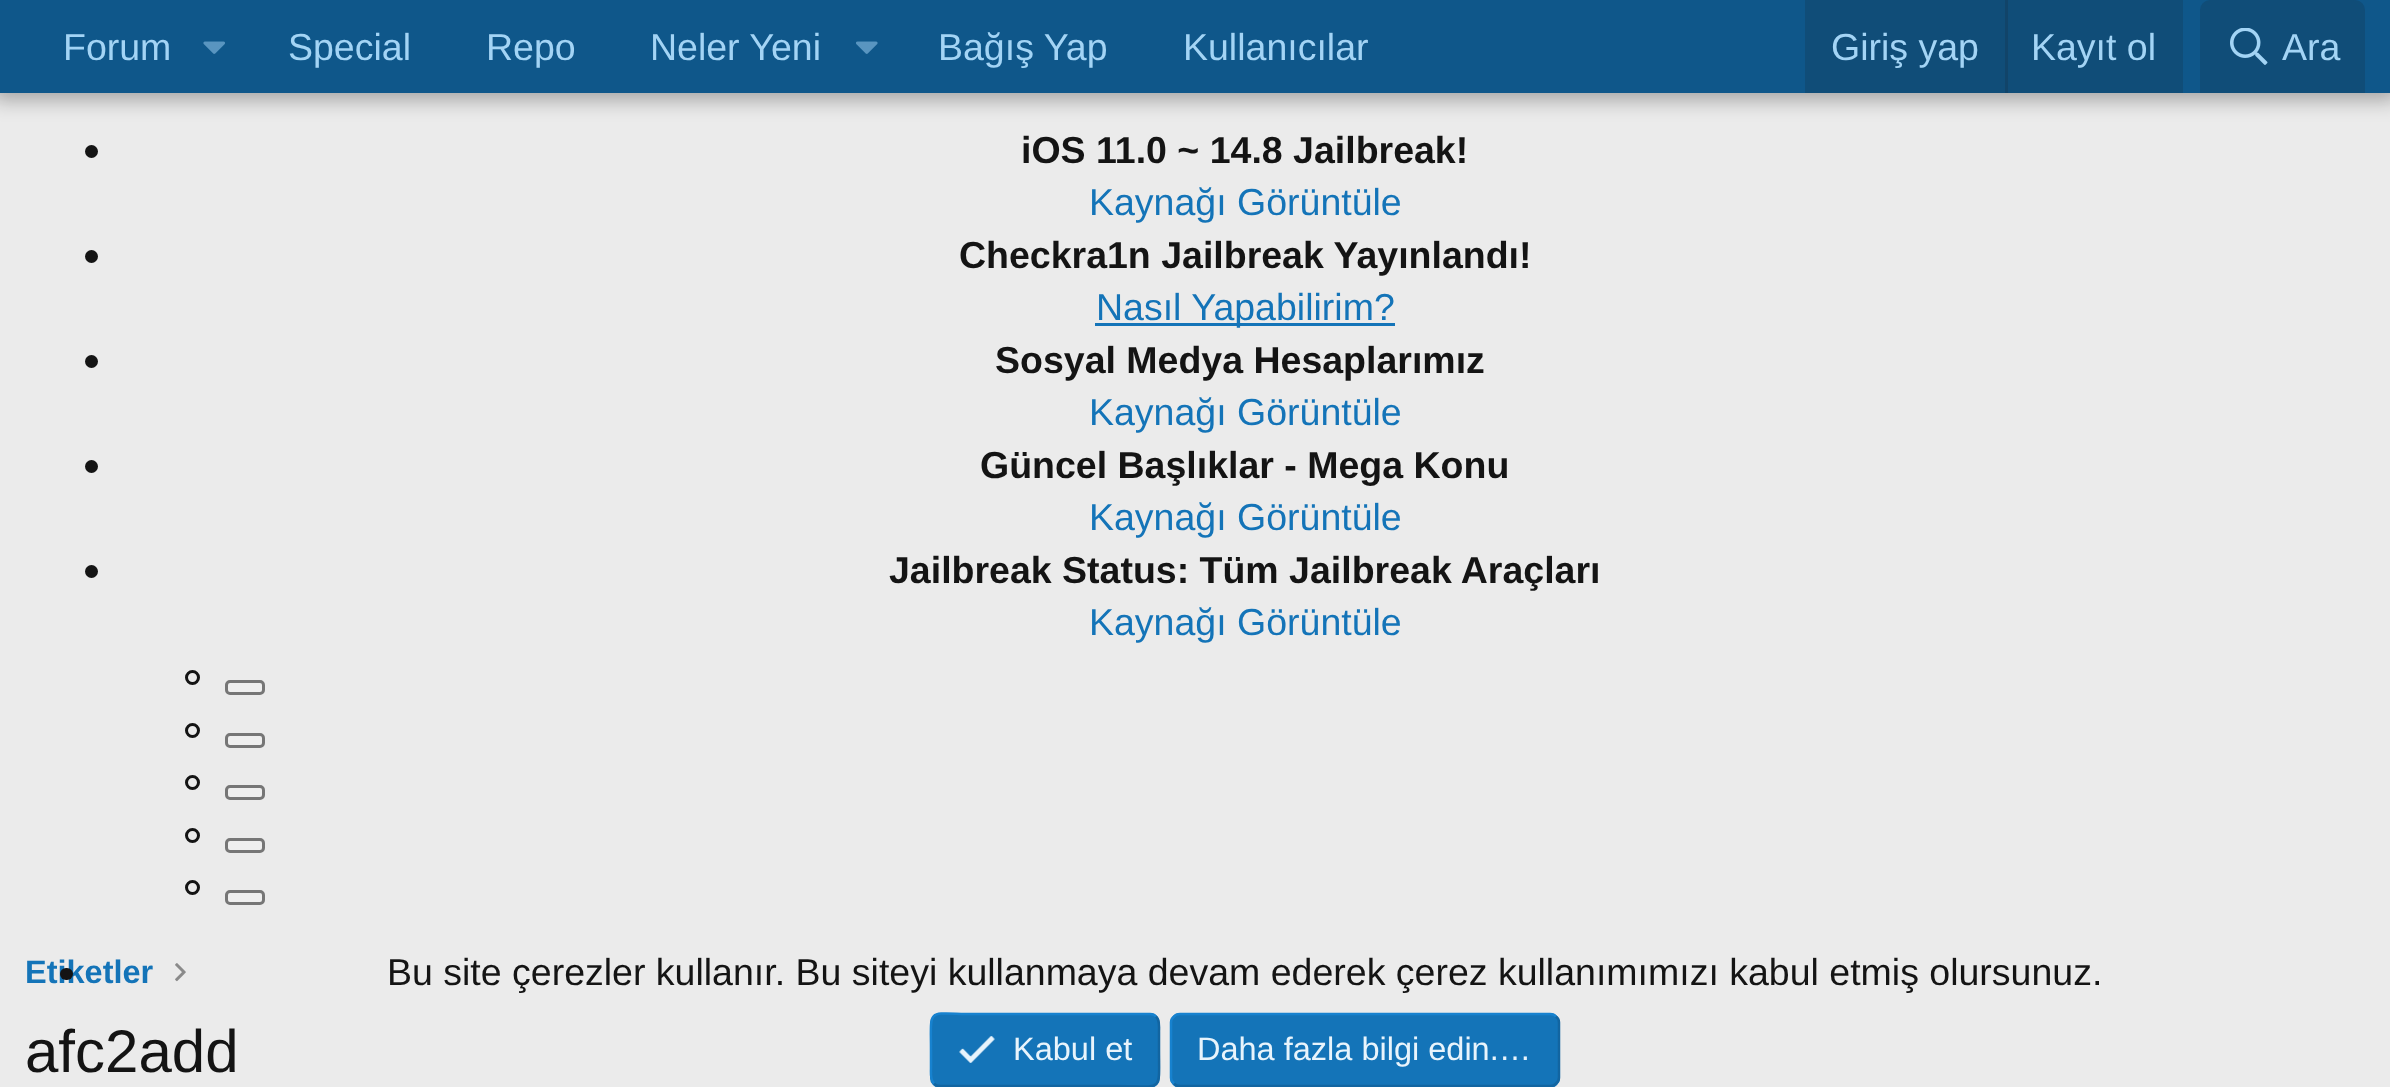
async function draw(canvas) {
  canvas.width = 2390
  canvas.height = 1087
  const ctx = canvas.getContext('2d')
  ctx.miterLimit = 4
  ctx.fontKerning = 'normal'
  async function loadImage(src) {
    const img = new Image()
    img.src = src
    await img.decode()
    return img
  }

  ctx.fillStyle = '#ebebeb'
  ctx.fillRect(0, 0, 2390, 1087)
  ctx.fillStyle = '#0000004d'
  ctx.filter = 'blur(10px)'
  ctx.beginPath()
  ctx.rect(-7, -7, 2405, 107)
  ctx.fill()
  ctx.filter = 'none'
  ctx.fillStyle = '#0f578a'
  ctx.fillRect(0, 0, 2390, 93)
  ctx.font = '37.5px Liberation Sans'
  ctx.fillStyle = '#a3d4f5'
  ctx.fillText('Forum', 63, 60)
  ctx.drawImage(await loadImage('image0.png'), 203, 41, 22, 13)
  ctx.fillText('Special', 288, 60)
  ctx.fillText('Repo', 486, 60)
  ctx.fillText('Neler Yeni', 650, 60)
  ctx.drawImage(await loadImage('image1.png'), 856, 41, 22, 13)
  ctx.fillText('Bağış Yap', 938, 60)
  ctx.fillText('Kullanıcılar', 1183, 60)
  ctx.fillStyle = '#104d78'
  ctx.fillRect(1805, 0, 378, 93)
  ctx.fillStyle = '#a3d4f5'
  ctx.fillText('Giriş yap', 1831, 60)
  ctx.fillStyle = '#114469'
  ctx.fillRect(2005, 0, 3, 93)
  ctx.fillStyle = '#a3d4f5'
  ctx.fillText('Kayıt ol', 2031, 60)
  ctx.fillStyle = '#104d78'
  ctx.beginPath()
  ctx.roundRect(2200, 0, 165, 93, [10, 10, 0, 0])
  ctx.fill()
  ctx.drawImage(await loadImage('image2.png'), 2230, 28, 38, 37)
  ctx.fillStyle = '#a3d4f5'
  ctx.fillText('Ara', 2282, 60)
  ctx.fillStyle = '#141414'
  ctx.beginPath()
  ctx.arc(91.5, 151.5, 6.5, 0, 2 * Math.PI)
  ctx.fill()
  ctx.font = 'bold 37.5px Liberation Sans'
  ctx.fillText('iOS 11.0 ~ 14.8 Jailbreak!', 1021, 163)
  ctx.font = '37.5px Liberation Sans'
  ctx.fillStyle = '#1474b8'
  ctx.fillText('Kaynağı Görüntüle', 1089, 215)
  ctx.fillStyle = '#141414'
  ctx.beginPath()
  ctx.arc(91.5, 256.5, 6.5, 0, 2 * Math.PI)
  ctx.fill()
  ctx.font = 'bold 37.5px Liberation Sans'
  ctx.fillText('Checkra1n Jailbreak Yayınlandı!', 959, 268)
  ctx.fillStyle = '#1474b8'
  ctx.fillRect(1095, 323, 300, 3)
  ctx.font = '37.5px Liberation Sans'
  ctx.fillText('Nasıl Yapabilirim?', 1096, 320)
  ctx.fillStyle = '#141414'
  ctx.beginPath()
  ctx.arc(91.5, 361.5, 6.5, 0, 2 * Math.PI)
  ctx.fill()
  ctx.font = 'bold 37.5px Liberation Sans'
  ctx.fillText('Sosyal Medya Hesaplarımız', 995, 373)
  ctx.font = '37.5px Liberation Sans'
  ctx.fillStyle = '#1474b8'
  ctx.fillText('Kaynağı Görüntüle', 1089, 425)
  ctx.fillStyle = '#141414'
  ctx.beginPath()
  ctx.arc(91.5, 466.5, 6.5, 0, 2 * Math.PI)
  ctx.fill()
  ctx.font = 'bold 37.5px Liberation Sans'
  ctx.fillText('Güncel Başlıklar - Mega Konu', 980, 478)
  ctx.font = '37.5px Liberation Sans'
  ctx.fillStyle = '#1474b8'
  ctx.fillText('Kaynağı Görüntüle', 1089, 530)
  ctx.fillStyle = '#141414'
  ctx.beginPath()
  ctx.arc(91.5, 571.5, 6.5, 0, 2 * Math.PI)
  ctx.fill()
  ctx.font = 'bold 37.5px Liberation Sans'
  ctx.fillText('Jailbreak Status: Tüm Jailbreak Araçları', 889, 583)
  ctx.font = '37.5px Liberation Sans'
  ctx.fillStyle = '#1474b8'
  ctx.fillText('Kaynağı Görüntüle', 1089, 635)
  ctx.beginPath()
  ctx.arc(192.5, 677.5, 6, 0, 2 * Math.PI)
  ctx.strokeStyle = '#141414'
  ctx.lineWidth = 3
  ctx.stroke()
  ctx.fillStyle = '#efefef'
  ctx.beginPath()
  ctx.roundRect(226.5, 681.5, 37, 12, 3.5)
  ctx.fill()
  ctx.strokeStyle = '#767676'
  ctx.stroke()
  ctx.beginPath()
  ctx.arc(192.5, 730.5, 6, 0, 2 * Math.PI)
  ctx.strokeStyle = '#141414'
  ctx.stroke()
  ctx.beginPath()
  ctx.roundRect(226.5, 734.5, 37, 12, 3.5)
  ctx.fill()
  ctx.strokeStyle = '#767676'
  ctx.stroke()
  ctx.beginPath()
  ctx.arc(192.5, 782.5, 6, 0, 2 * Math.PI)
  ctx.strokeStyle = '#141414'
  ctx.stroke()
  ctx.beginPath()
  ctx.roundRect(226.5, 786.5, 37, 12, 3.5)
  ctx.fill()
  ctx.strokeStyle = '#767676'
  ctx.stroke()
  ctx.beginPath()
  ctx.arc(192.5, 835.5, 6, 0, 2 * Math.PI)
  ctx.strokeStyle = '#141414'
  ctx.stroke()
  ctx.beginPath()
  ctx.roundRect(226.5, 839.5, 37, 12, 3.5)
  ctx.fill()
  ctx.strokeStyle = '#767676'
  ctx.stroke()
  ctx.beginPath()
  ctx.arc(192.5, 887.5, 6, 0, 2 * Math.PI)
  ctx.strokeStyle = '#141414'
  ctx.stroke()
  ctx.beginPath()
  ctx.roundRect(226.5, 891.5, 37, 12, 3.5)
  ctx.fill()
  ctx.strokeStyle = '#767676'
  ctx.stroke()
  ctx.font = 'bold 32.5px Liberation Sans'
  ctx.fillStyle = '#1474b8'
  ctx.fillText('Etiketler', 25, 983)
  ctx.drawImage(await loadImage('image3.png'), 175, 963, 11, 19)
  ctx.font = '60px Liberation Sans'
  ctx.fillStyle = '#141414'
  ctx.fillText('afc2add', 25, 1072)
  ctx.beginPath()
  ctx.roundRect(60, 968, 13, 12, 6)
  ctx.fill()
  ctx.font = '37.5px Liberation Sans'
  ctx.fillText('Bu site çerezler kullanır. Bu siteyi kullanmaya devam ederek çerez kullanımımızı kabul etmiş olursunuz.', 387, 985)
  ctx.fillStyle = '#1474b8'
  ctx.beginPath()
  ctx.roundRect(930, 1013, 230, 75, 10)
  ctx.fill()
  ctx.beginPath()
  ctx.moveTo(1156, 1016.5)
  ctx.bezierCurveTo(1160, 1020, 1159, 1027, 1159, 1031.5)
  ctx.lineTo(1159, 1050)
  ctx.bezierCurveTo(1159, 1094, 1164, 1086, 1115, 1086)
  ctx.lineTo(940, 1086)
  ctx.bezierCurveTo(937.5, 1086, 935.5, 1085.5, 934, 1083.5)
  ctx.strokeStyle = '#1265a1'
  ctx.lineWidth = 2.5
  ctx.stroke()
  ctx.beginPath()
  ctx.moveTo(934, 1083.5)
  ctx.bezierCurveTo(930, 1080, 931, 1073, 931, 1068.5)
  ctx.lineTo(931, 1050)
  ctx.bezierCurveTo(931, 1006, 926, 1014, 975, 1014)
  ctx.lineTo(1150, 1014)
  ctx.bezierCurveTo(1152.5, 1014, 1154.5, 1014.5, 1156, 1016.5)
  ctx.strokeStyle = '#1782cf'
  ctx.stroke()
  ctx.drawImage(await loadImage('image4.png'), 959, 1036, 36, 27)
  ctx.font = '32.5px Liberation Sans'
  ctx.fillStyle = '#e8f4fc'
  ctx.fillText('Kabul et', 1013, 1060)
  ctx.fillStyle = '#1474b8'
  ctx.beginPath()
  ctx.roundRect(1170, 1013, 390, 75, 10)
  ctx.fill()
  ctx.beginPath()
  ctx.moveTo(1556, 1016.5)
  ctx.bezierCurveTo(1558, 1018, 1559, 1020, 1559, 1022.5)
  ctx.lineTo(1559, 1077.5)
  ctx.bezierCurveTo(1559, 1080, 1558, 1082, 1556, 1083.5)
  ctx.bezierCurveTo(1554.5, 1085.5, 1552.5, 1086, 1550, 1086)
  ctx.lineTo(1180, 1086)
  ctx.bezierCurveTo(1177.5, 1086, 1175.5, 1085.5, 1174, 1083.5)
  ctx.strokeStyle = '#1265a1'
  ctx.stroke()
  ctx.beginPath()
  ctx.moveTo(1174, 1083.5)
  ctx.bezierCurveTo(1172, 1082, 1171, 1080, 1171, 1077.5)
  ctx.lineTo(1171, 1022.5)
  ctx.bezierCurveTo(1171, 1020, 1172, 1018, 1174, 1016.5)
  ctx.bezierCurveTo(1175.5, 1014.5, 1177.5, 1014, 1180, 1014)
  ctx.lineTo(1550, 1014)
  ctx.bezierCurveTo(1552.5, 1014, 1554.5, 1014.5, 1556, 1016.5)
  ctx.strokeStyle = '#1782cf'
  ctx.stroke()
  ctx.fillStyle = '#e8f4fc'
  ctx.fillText('Daha fazla bilgi edin.…', 1197, 1060)
}

draw(document.querySelector('canvas'))
